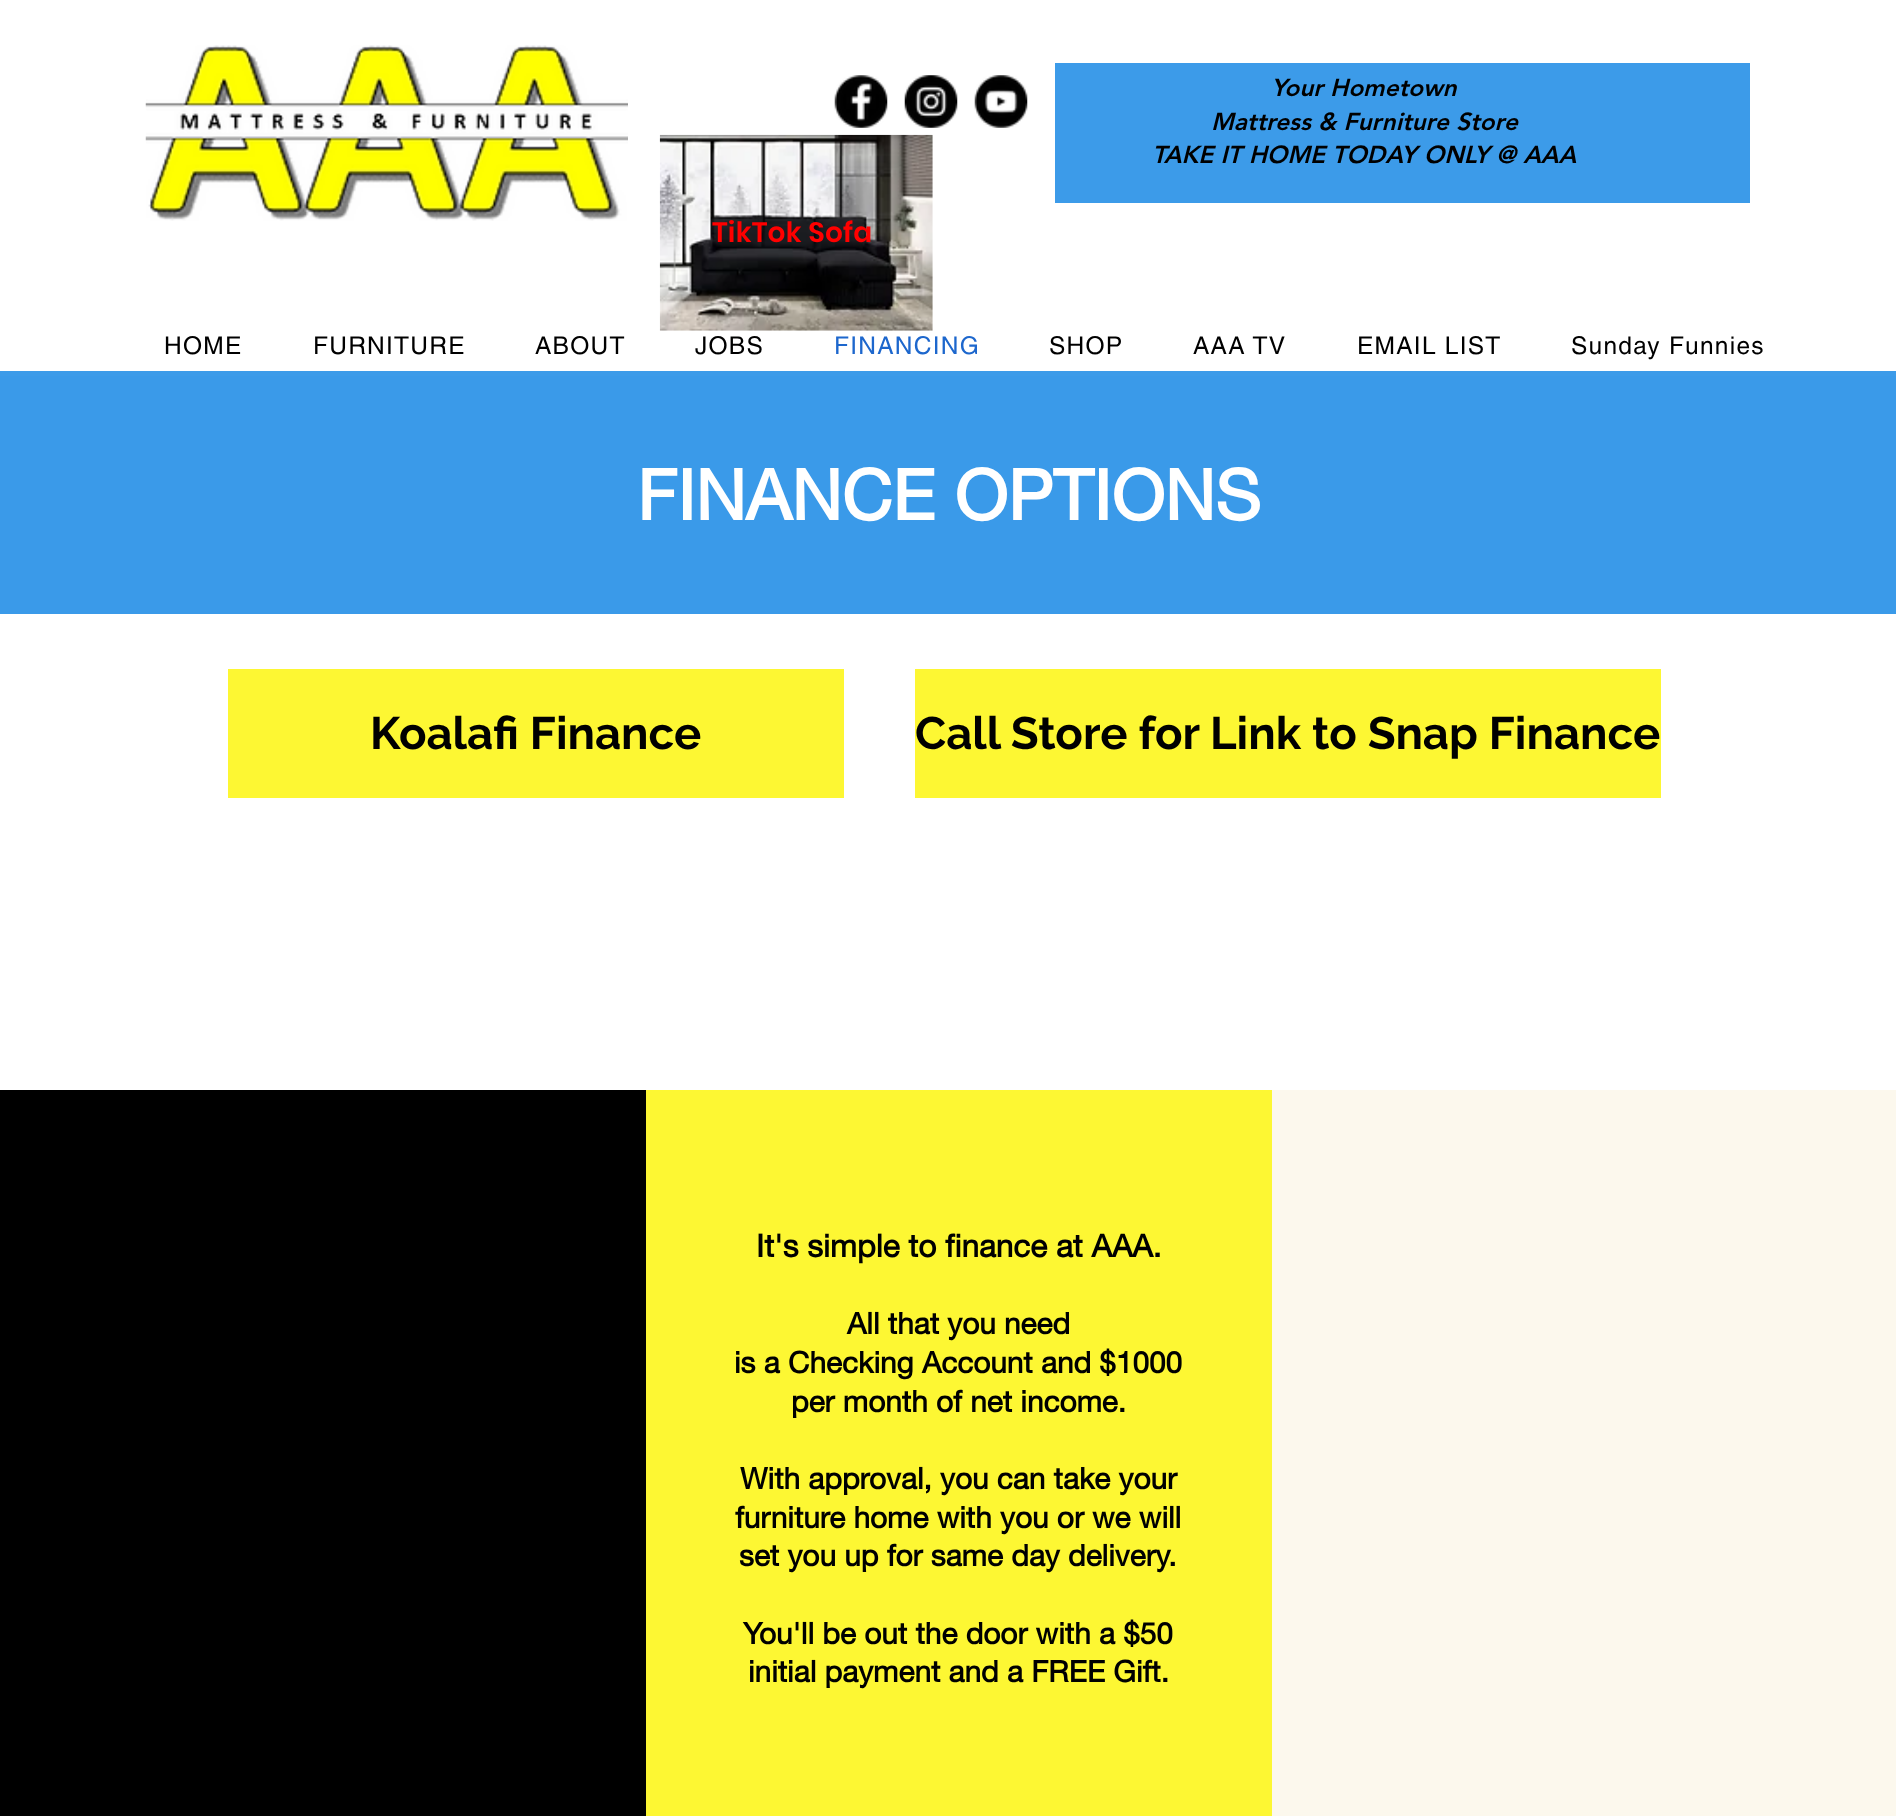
async function draw(canvas) {
  canvas.width = 1896
  canvas.height = 1816
  const ctx = canvas.getContext('2d')
  ctx.miterLimit = 4
  ctx.fontKerning = 'normal'
  async function loadImage(src) {
    const img = new Image()
    img.src = src
    await img.decode()
    return img
  }

  ctx.fillStyle = '#fff'
  ctx.fillRect(0, 0, 1896, 1816)
  ctx.fillStyle = '#3c9be9'
  ctx.fillRect(1055, 63, 695, 140)
  ctx.font = 'italic 900 24.5px "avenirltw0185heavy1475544"'
  ctx.fillStyle = '#000'
  ctx.fillText('Your Hometown', 1271, 96)
  ctx.fillText('Mattress & Furniture Store', 1211, 130)
  ctx.fillText('TAKE IT HOME TODAY ONLY @ AAA', 1152, 163)
  ctx.drawImage(await loadImage('image0.png'), 659, 134, 274, 197)
  ctx.letterSpacing = '0.25px'
  ctx.font = '600 28px Poppins'
  ctx.fillStyle = '#f00'
  ctx.fillText('TikTok Sofa', 712, 242)
  ctx.drawImage(await loadImage('image1.png'), 145, 45, 483, 176)
  ctx.drawImage(await loadImage('image2.png'), 834, 75, 54, 53)
  ctx.drawImage(await loadImage('image3.png'), 904, 75, 54, 53)
  ctx.drawImage(await loadImage('image4.png'), 974, 75, 54, 53)
  ctx.letterSpacing = '1.25px'
  ctx.font = '24.5px helvetica'
  ctx.fillStyle = '#000'
  ctx.fillText('HOME', 164, 354)
  ctx.fillText('FURNITURE', 313, 354)
  ctx.fillText('ABOUT', 535, 354)
  ctx.fillText('JOBS', 695, 354)
  ctx.fillStyle = '#1d67cd'
  ctx.fillText('FINANCING', 834, 354)
  ctx.fillStyle = '#000'
  ctx.fillText('SHOP', 1049, 354)
  ctx.fillText('AAA TV', 1193, 354)
  ctx.fillText('EMAIL LIST', 1357, 354)
  ctx.fillText('Sunday Funnies', 1571, 354)
  ctx.fillStyle = '#3c9be9'
  ctx.fillRect(0, 371, 1896, 5)
  ctx.fillStyle = '#3a9ae9'
  ctx.fillRect(0, 376, 1896, 238)
  ctx.letterSpacing = '0px'
  ctx.font = 'bold 70px helvetica neue'
  ctx.fillStyle = '#fff'
  ctx.fillText('FINANCE OPTIONS', 637, 520)
  ctx.fillStyle = '#fdf733'
  ctx.fillRect(228, 669, 616, 129)
  ctx.font = 'bold 45.5px Raleway'
  ctx.fillStyle = '#000'
  ctx.fillText('Koalafi Finance', 370, 749)
  ctx.fillStyle = '#fdf733'
  ctx.fillRect(915, 669, 746, 129)
  ctx.fillStyle = '#000'
  ctx.fillText('Call Store for Link to Snap Finance', 915, 749)
  ctx.fillRect(0, 1090, 646, 726)
  ctx.fillStyle = '#fdf733'
  ctx.fillRect(646, 1090, 626, 726)
  ctx.font = 'bold 31.5px helvetica neue'
  ctx.fillStyle = '#000'
  ctx.fillText('It\'s simple to finance at AAA.', 756, 1257)
  ctx.font = 'bold 29.75px helvetica neue'
  ctx.fillText('All that you need', 847, 1334)
  ctx.fillText('is a Checking Account and $1000', 734, 1373)
  ctx.fillText('per month of net income.', 791, 1412)
  ctx.fillText('With approval, you can take your', 740, 1489)
  ctx.fillText('furniture home with you or we will', 735, 1528)
  ctx.fillText('set you up for same day delivery.', 739, 1566)
  ctx.fillText('You\'ll be out the door with a $50', 743, 1644)
  ctx.fillText('initial payment and a FREE Gift.', 748, 1682)
  ctx.fillStyle = '#fcf8ed'
  ctx.fillRect(1272, 1090, 624, 726)
}

draw(document.querySelector('canvas'))
